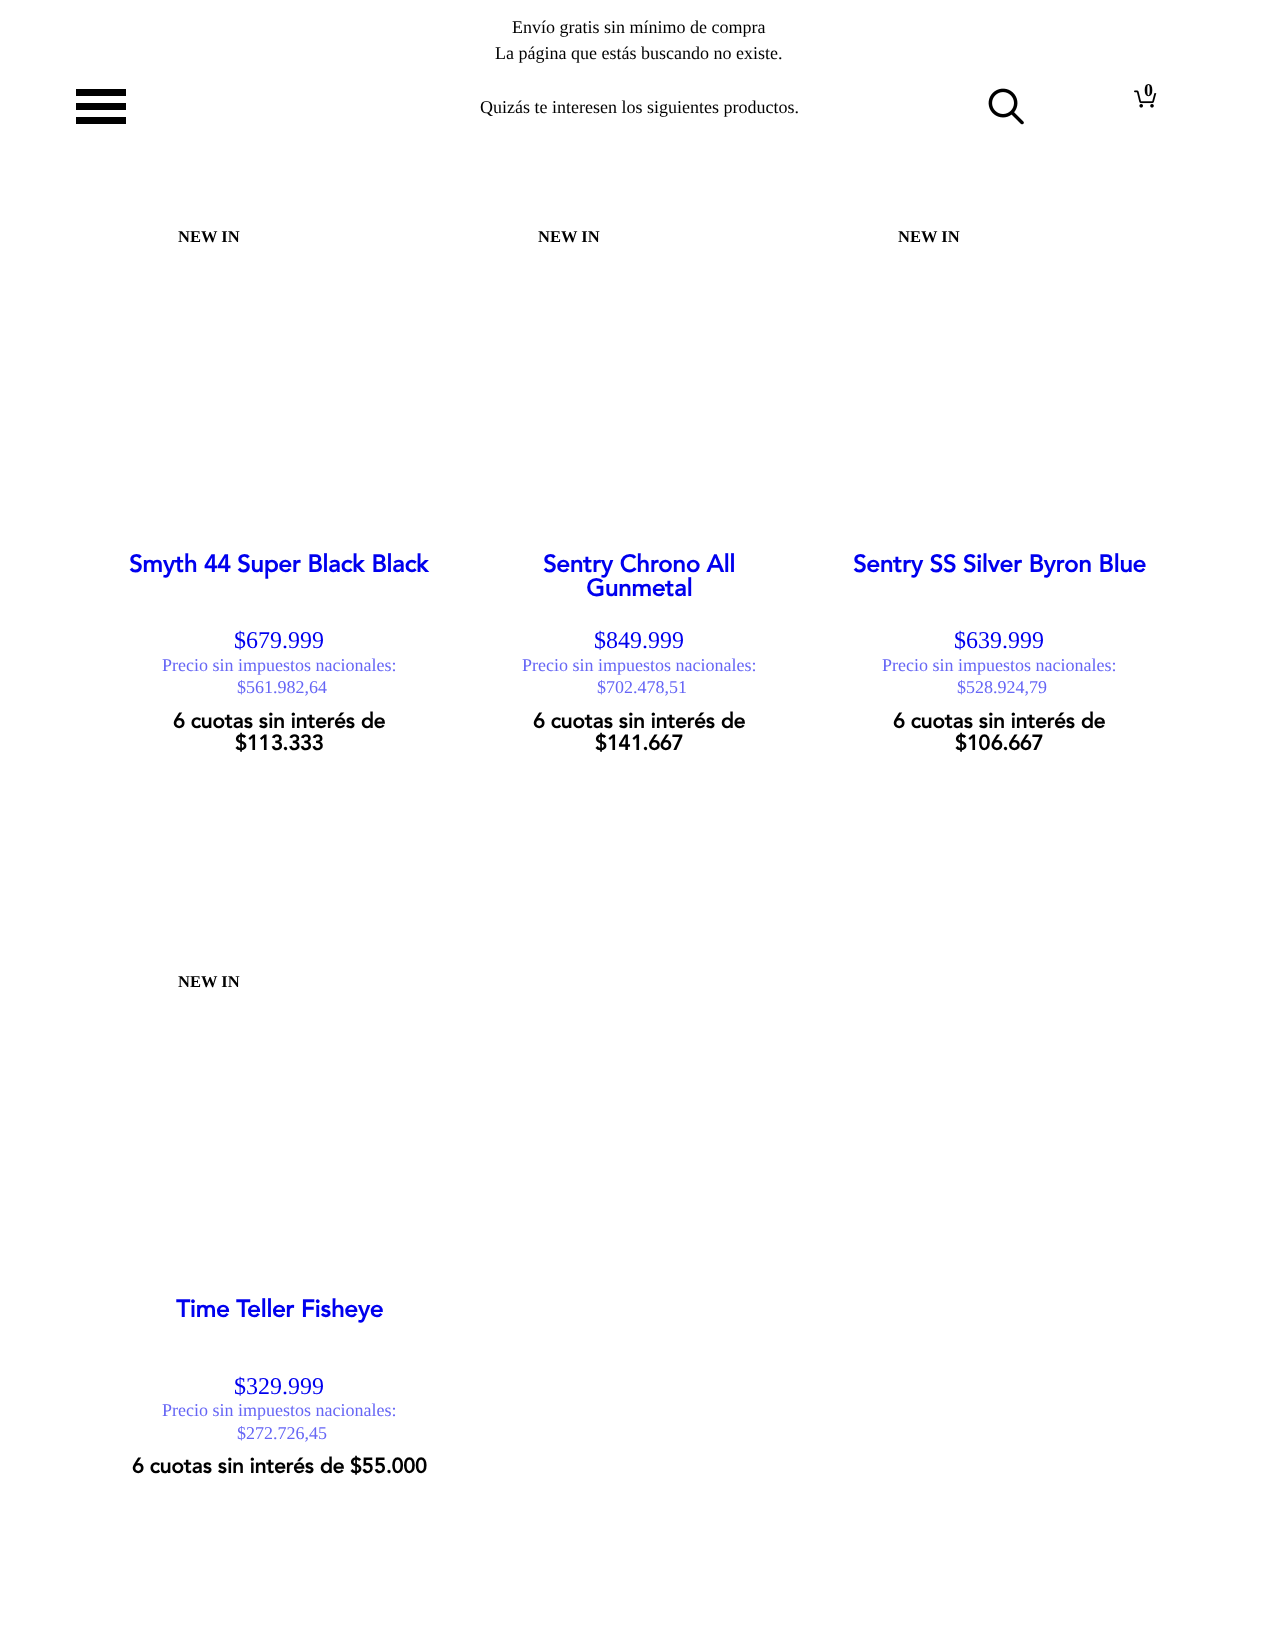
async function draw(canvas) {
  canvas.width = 1278
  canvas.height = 1647
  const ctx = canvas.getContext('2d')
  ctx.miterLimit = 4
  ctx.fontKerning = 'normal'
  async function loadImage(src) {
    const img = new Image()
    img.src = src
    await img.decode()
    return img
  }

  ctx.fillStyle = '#fff'
  ctx.fillRect(0, 0, 1278, 1647)
  ctx.font = '18px Liberation Serif'
  ctx.fillStyle = '#000'
  ctx.fillText('Envío gratis sin mínimo de compra', 512, 33)
  ctx.beginPath()
  ctx.moveTo(76, 124)
  ctx.lineTo(126, 124)
  ctx.lineTo(126, 117)
  ctx.lineTo(76, 117)
  ctx.closePath()
  ctx.moveTo(76, 89)
  ctx.lineTo(76, 96)
  ctx.lineTo(126, 96)
  ctx.lineTo(126, 89)
  ctx.closePath()
  ctx.moveTo(76, 110)
  ctx.lineTo(126, 110)
  ctx.lineTo(126, 103)
  ctx.lineTo(76, 103)
  ctx.closePath()
  ctx.fill()
  ctx.drawImage(await loadImage('image0.png'), 988, 88, 36, 37)
  ctx.drawImage(await loadImage('image1.png'), 1134, 90, 23, 18)
  ctx.font = 'bold 18px Liberation Serif'
  ctx.fillText('0', 1144, 96)
  ctx.font = '18px Liberation Serif'
  ctx.fillText('La página que estás buscando no existe.', 495, 59)
  ctx.fillText('Quizás te interesen los siguientes productos.', 480, 113)
  ctx.font = 'bold 16.5px Liberation Serif'
  ctx.fillText('NEW IN', 178, 242)
  ctx.font = 'bold 24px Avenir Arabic'
  ctx.fillStyle = '#00e'
  ctx.fillText('Smyth 44 Super Black Black', 129, 572)
  ctx.font = '24px Liberation Serif'
  ctx.fillText('$679.999', 234, 648)
  ctx.font = '18px Liberation Serif'
  ctx.fillStyle = '#6666f5'
  ctx.fillText('Precio sin impuestos nacionales:', 162, 671)
  ctx.fillText('$561.982,64', 237, 693)
  ctx.font = 'bold 21px Avenir Arabic'
  ctx.fillStyle = '#000'
  ctx.fillText('6 cuotas sin interés de', 173, 728)
  ctx.fillText('$113.333', 235, 750)
  ctx.font = 'bold 16.5px Liberation Serif'
  ctx.fillText('NEW IN', 538, 242)
  ctx.font = 'bold 24px Avenir Arabic'
  ctx.fillStyle = '#00e'
  ctx.fillText('Sentry Chrono All', 543, 572)
  ctx.fillText('Gunmetal', 586, 596)
  ctx.font = '24px Liberation Serif'
  ctx.fillText('$849.999', 594, 648)
  ctx.font = '18px Liberation Serif'
  ctx.fillStyle = '#6666f5'
  ctx.fillText('Precio sin impuestos nacionales:', 522, 671)
  ctx.fillText('$702.478,51', 597, 693)
  ctx.font = 'bold 21px Avenir Arabic'
  ctx.fillStyle = '#000'
  ctx.fillText('6 cuotas sin interés de', 533, 728)
  ctx.fillText('$141.667', 595, 750)
  ctx.font = 'bold 16.5px Liberation Serif'
  ctx.fillText('NEW IN', 898, 242)
  ctx.font = 'bold 24px Avenir Arabic'
  ctx.fillStyle = '#00e'
  ctx.fillText('Sentry SS Silver Byron Blue', 853, 572)
  ctx.font = '24px Liberation Serif'
  ctx.fillText('$639.999', 954, 648)
  ctx.font = '18px Liberation Serif'
  ctx.fillStyle = '#6666f5'
  ctx.fillText('Precio sin impuestos nacionales:', 882, 671)
  ctx.fillText('$528.924,79', 957, 693)
  ctx.font = 'bold 21px Avenir Arabic'
  ctx.fillStyle = '#000'
  ctx.fillText('6 cuotas sin interés de', 893, 728)
  ctx.fillText('$106.667', 955, 750)
  ctx.font = 'bold 16.5px Liberation Serif'
  ctx.fillText('NEW IN', 178, 987)
  ctx.font = 'bold 24px Avenir Arabic'
  ctx.fillStyle = '#00e'
  ctx.fillText('Time Teller Fisheye', 176, 1317)
  ctx.font = '24px Liberation Serif'
  ctx.fillText('$329.999', 234, 1394)
  ctx.font = '18px Liberation Serif'
  ctx.fillStyle = '#6666f5'
  ctx.fillText('Precio sin impuestos nacionales:', 162, 1416)
  ctx.fillText('$272.726,45', 237, 1439)
  ctx.font = 'bold 21px Avenir Arabic'
  ctx.fillStyle = '#000'
  ctx.fillText('6 cuotas sin interés de $55.000', 132, 1473)
}

draw(document.querySelector('canvas'))
